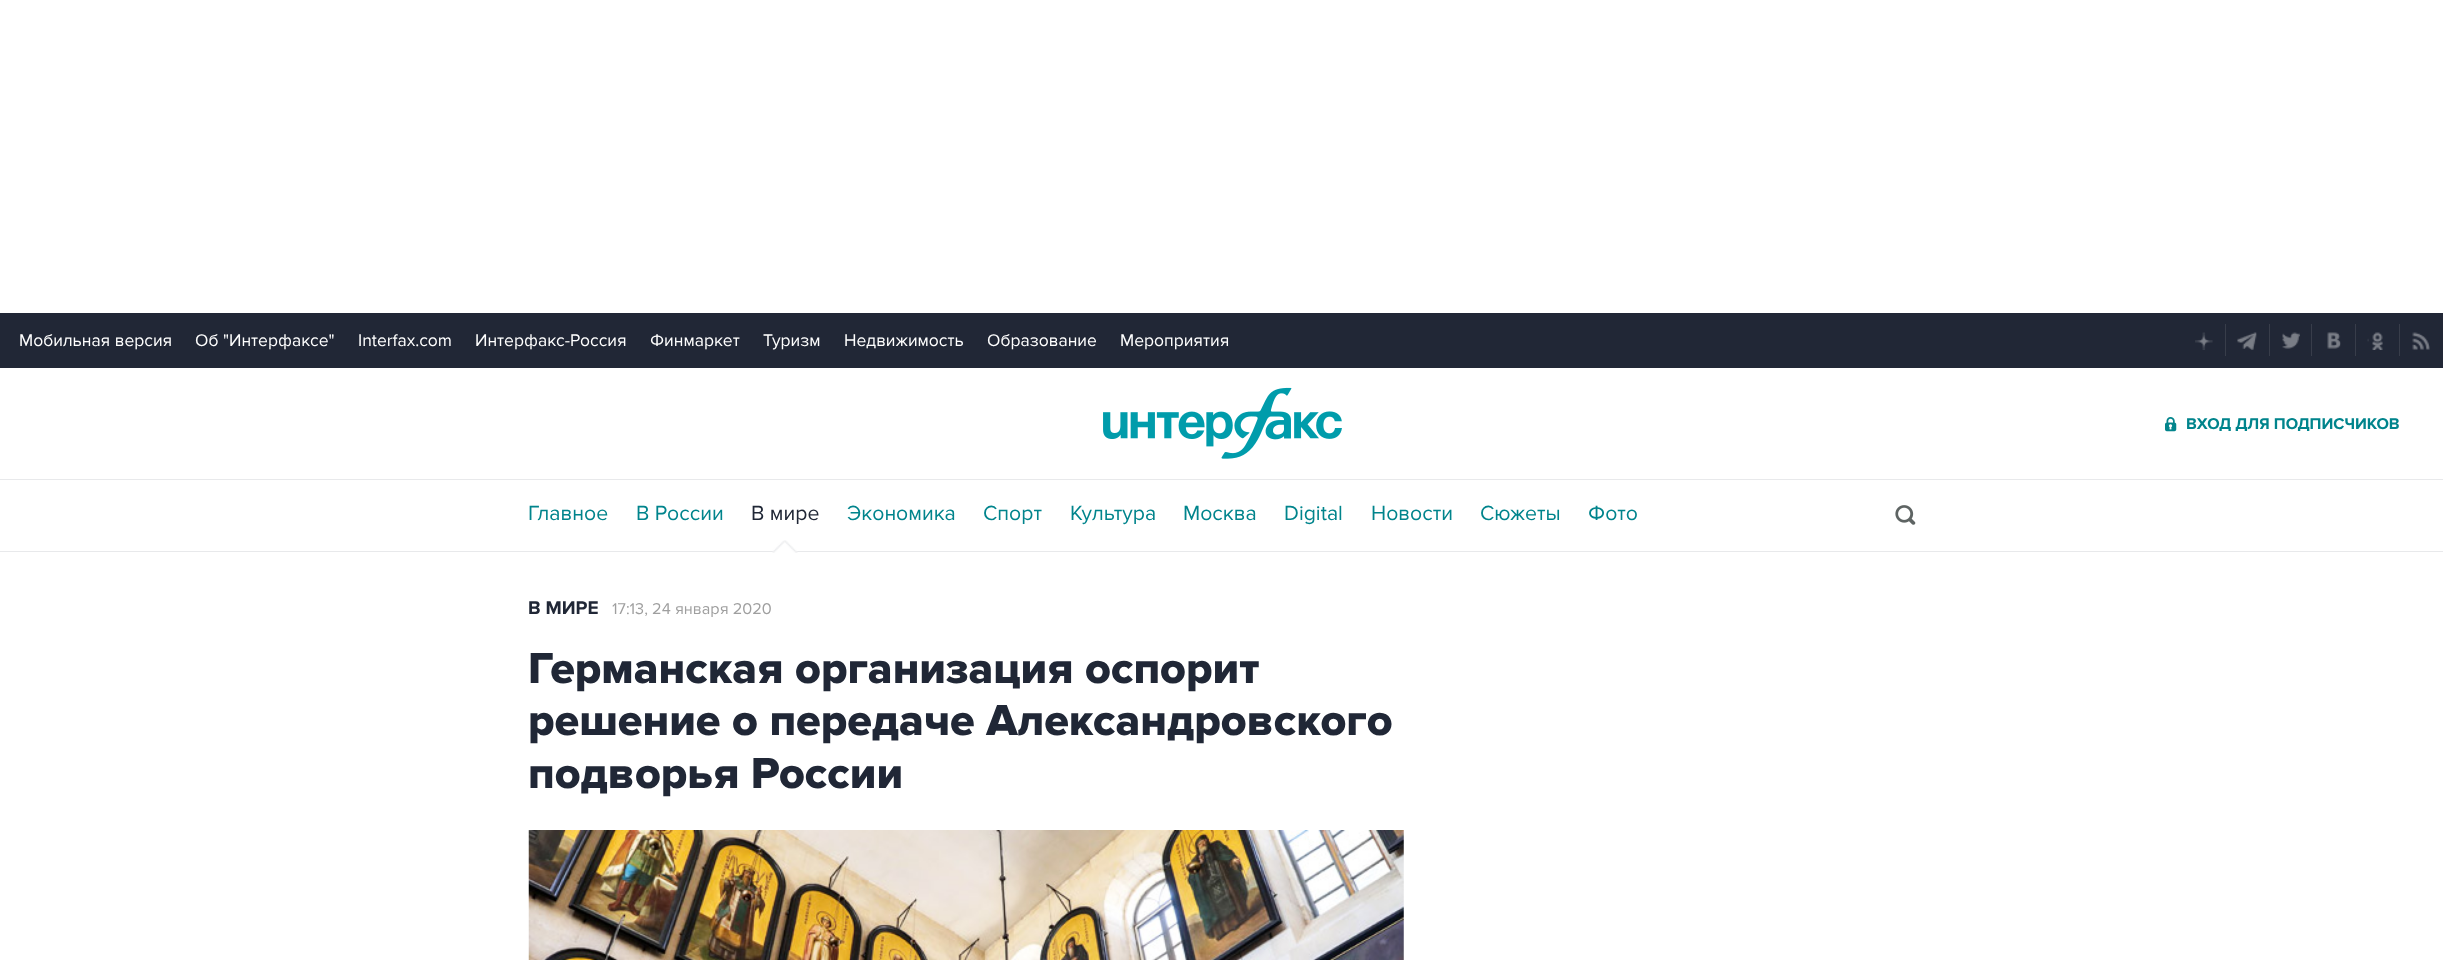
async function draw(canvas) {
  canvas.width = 2443
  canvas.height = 960
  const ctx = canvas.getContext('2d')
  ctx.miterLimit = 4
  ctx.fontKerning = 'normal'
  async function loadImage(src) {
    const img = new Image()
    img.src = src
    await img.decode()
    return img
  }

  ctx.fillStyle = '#fff'
  ctx.fillRect(0, 0, 2443, 960)
  ctx.fillStyle = '#e8e9eb'
  ctx.fillRect(0, 551, 2443, 1)
  ctx.fillStyle = '#212736'
  ctx.fillRect(0, 313, 2443, 55)
  ctx.font = '17.5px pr'
  ctx.fillStyle = '#fff'
  ctx.fillText('Мобильная версия', 19, 346)
  ctx.fillText('Об "Интерфаксе"', 195, 346)
  ctx.fillText('Interfax.com', 358, 346)
  ctx.fillText('Интерфакс-Россия', 475, 346)
  ctx.fillText('Финмаркет', 650, 346)
  ctx.fillText('Туризм', 763, 346)
  ctx.fillText('Недвижимость', 844, 346)
  ctx.fillText('Образование', 987, 346)
  ctx.fillText('Мероприятия', 1120, 346)
  ctx.drawImage(await loadImage('image0.png'), 2195, 332, 18, 18)
  ctx.fillStyle = '#383d4a'
  ctx.fillRect(2225, 324, 1, 32)
  ctx.drawImage(await loadImage('image1.png'), 2237, 332, 20, 18)
  ctx.fillRect(2269, 324, 1, 32)
  ctx.drawImage(await loadImage('image2.png'), 2282, 332, 18, 17)
  ctx.fillRect(2311, 324, 1, 32)
  ctx.drawImage(await loadImage('image3.png'), 2327, 332, 14, 17)
  ctx.fillRect(2355, 324, 1, 32)
  ctx.drawImage(await loadImage('image4.png'), 2367, 332, 16, 18)
  ctx.fillRect(2399, 324, 1, 32)
  ctx.drawImage(await loadImage('image5.png'), 2412, 332, 18, 18)
  ctx.fillStyle = '#e8e9eb'
  ctx.fillRect(0, 479, 2443, 1)
  ctx.drawImage(await loadImage('image6.png'), 1103, 387, 239, 72)
  ctx.drawImage(await loadImage('image7.png'), 2165, 417, 12, 15)
  ctx.font = 'bold 16.25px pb'
  ctx.fillStyle = '#00848c'
  ctx.fillText('ВХОД ДЛЯ ПОДПИСЧИКОВ', 2186, 429)
  ctx.font = '21.25px pr'
  ctx.fillText('Главное', 528, 520)
  ctx.fillText('В России', 636, 520)
  ctx.fillStyle = '#202736'
  ctx.fillText('В мире', 751, 520)
  ctx.drawImage(await loadImage('image8.png'), 772, 540, 26, 13)
  ctx.fillStyle = '#00848c'
  ctx.fillText('Экономика', 847, 520)
  ctx.fillText('Спорт', 983, 520)
  ctx.fillText('Культура', 1070, 520)
  ctx.fillText('Москва', 1183, 520)
  ctx.fillText('Digital', 1284, 520)
  ctx.fillText('Новости', 1371, 520)
  ctx.fillText('Сюжеты', 1480, 520)
  ctx.fillText('Фото', 1588, 520)
  ctx.drawImage(await loadImage('image9.png'), 1895, 505, 21, 20)
  ctx.font = 'bold 19px pb'
  ctx.fillStyle = '#202736'
  ctx.fillText('В МИРЕ', 528, 614)
  ctx.font = '16.25px pr'
  ctx.fillStyle = '#9f9f9f'
  ctx.fillText('17:13, 24 января 2020', 612, 614)
  ctx.font = '800 45px Proxima Nova'
  ctx.fillStyle = '#202736'
  ctx.fillText('Германская организация оспорит', 528, 683)
  ctx.fillText('решение о передаче Александровского', 528, 735)
  ctx.fillText('подворья России', 528, 788)
  ctx.drawImage(await loadImage('image10.png'), 528, 830, 876, 130)
}

draw(document.querySelector('canvas'))
